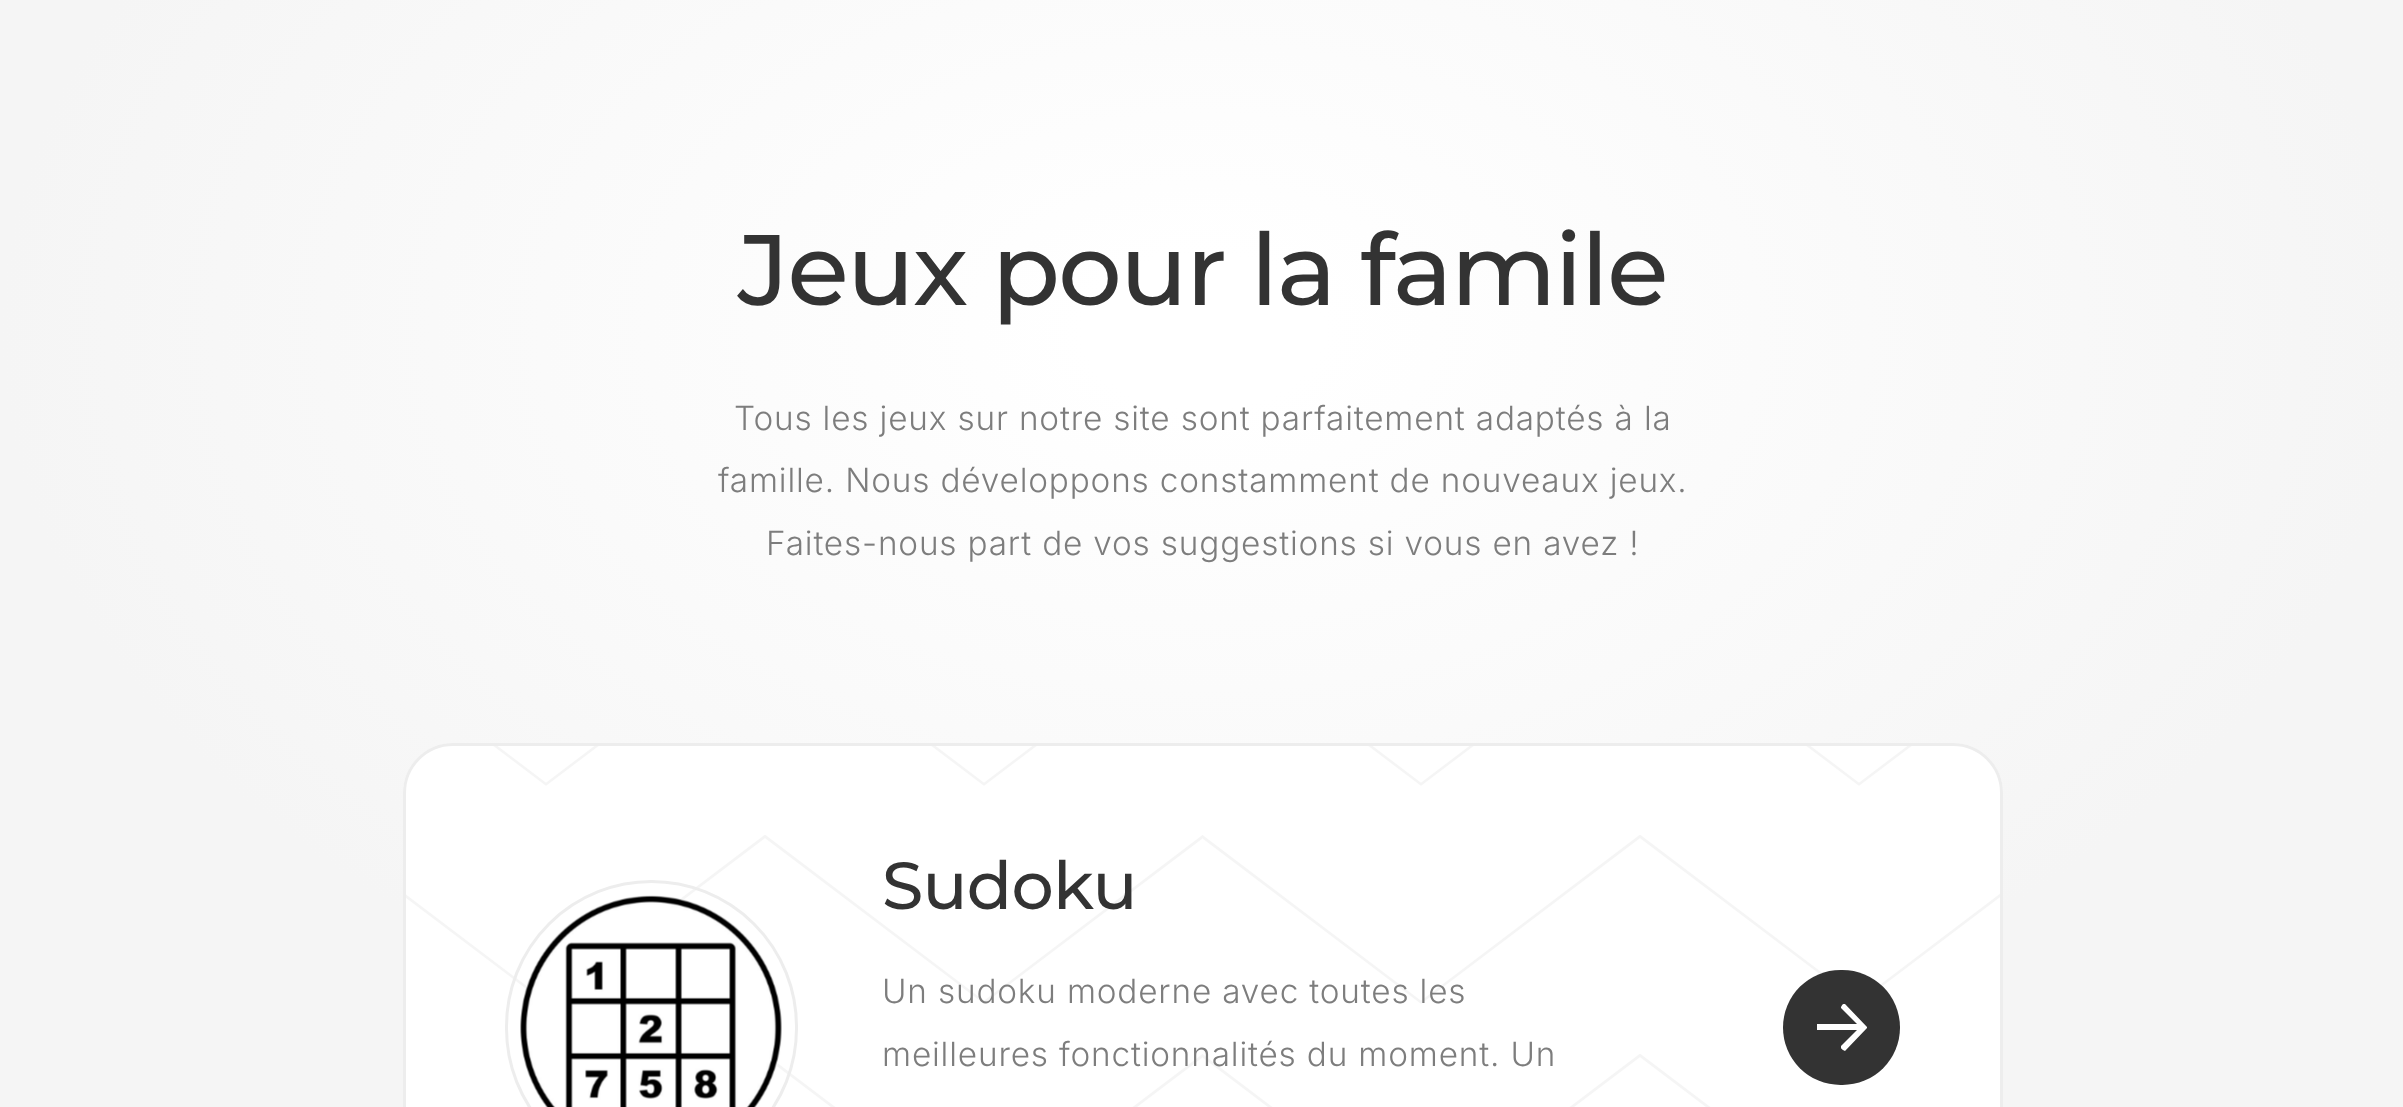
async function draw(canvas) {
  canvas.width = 2403
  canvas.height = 1107
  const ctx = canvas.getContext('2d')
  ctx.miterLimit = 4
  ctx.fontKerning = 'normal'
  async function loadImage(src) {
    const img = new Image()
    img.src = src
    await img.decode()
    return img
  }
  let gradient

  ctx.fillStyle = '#fff'
  ctx.fillRect(0, 0, 2403, 1107)
  gradient = ctx.createRadialGradient(1203, 515.35, 0, 1203, 515.35, 1203)
  gradient.addColorStop(0.1, '#fff')
  gradient.addColorStop(1, '#f5f5f5')
  ctx.fillStyle = gradient
  ctx.beginPath()
  ctx.rect(0, 0, 2403, 1107)
  ctx.save()
  ctx.clip()
  ctx.scale(1, 775 / 1203)
  ctx.fillRect(0, 0, 2403, 1719)
  ctx.restore()
  ctx.letterSpacing = '-1.7px'
  ctx.font = '100 100px Montserrat'
  ctx.fillStyle = '#333'
  ctx.fillText('Jeux pour la famile', 738, 305)
  ctx.letterSpacing = '0.83px'
  ctx.font = '300 33.3px Inter'
  ctx.fillStyle = '#7d7d7d'
  ctx.fillText('Tous les jeux sur notre site sont parfaitement adaptés à la', 734, 430)
  ctx.fillText('famille. Nous développons constamment de nouveaux jeux.', 718, 492)
  ctx.fillText('Faites-nous part de vos suggestions si vous en avez !', 766, 555)
  ctx.fillStyle = '#fff'
  ctx.beginPath()
  ctx.roundRect(403, 743, 1600, 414, 50)
  ctx.fill()
  ctx.drawImage(await loadImage('image0.png'), 406, 746, 1594, 361)
  ctx.beginPath()
  ctx.roundRect(404.5, 744.5, 1597, 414, 48.5)
  ctx.strokeStyle = '#ededed'
  ctx.lineWidth = 3
  ctx.stroke()
  ctx.beginPath()
  ctx.roundRect(506.5, 881.5, 290, 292, 145)
  ctx.stroke()
  ctx.drawImage(await loadImage('image1.png'), 520, 895, 262, 212)
  ctx.letterSpacing = '-0.75px'
  ctx.font = '100 66.5px Montserrat'
  ctx.fillStyle = '#333'
  ctx.fillText('Sudoku', 882, 909)
  ctx.letterSpacing = '0.83px'
  ctx.font = '300 33.3px Inter'
  ctx.fillStyle = '#7d7d7d'
  ctx.fillText('Un sudoku moderne avec toutes les', 882, 1003)
  ctx.fillText('meilleures fonctionnalités du moment. Un', 882, 1066)
  ctx.fillStyle = '#333'
  ctx.beginPath()
  ctx.roundRect(1783, 970, 117, 115, 57.5)
  ctx.fill()
  ctx.fillStyle = '#fff'
  ctx.beginPath()
  ctx.moveTo(1867, 1027)
  ctx.lineTo(1867, 1028)
  ctx.lineTo(1845, 1051)
  ctx.lineTo(1843, 1050)
  ctx.bezierCurveTo(1841, 1048, 1841, 1049, 1841, 1046)
  ctx.lineTo(1857, 1030)
  ctx.lineTo(1817, 1030)
  ctx.lineTo(1817, 1024)
  ctx.lineTo(1857, 1024)
  ctx.lineTo(1841, 1008)
  ctx.lineTo(1841, 1007)
  ctx.bezierCurveTo(1843, 1004, 1842, 1004, 1845, 1004)
  ctx.closePath()
  ctx.fill()
}

draw(document.querySelector('canvas'))
